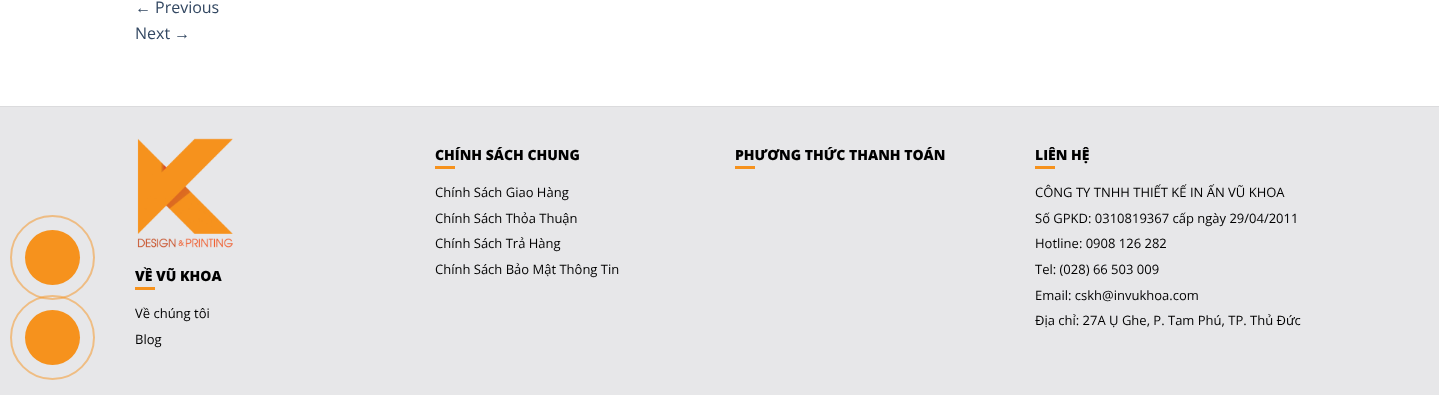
async function draw(canvas) {
  canvas.width = 1439
  canvas.height = 395
  const ctx = canvas.getContext('2d')
  ctx.miterLimit = 4
  ctx.fontKerning = 'normal'
  async function loadImage(src) {
    const img = new Image()
    img.src = src
    await img.decode()
    return img
  }

  ctx.fillStyle = '#fff'
  ctx.fillRect(0, 0, 1439, 395)
  ctx.fillStyle = '#e7e7e9'
  ctx.fillRect(0, 107, 1439, 288)
  ctx.beginPath()
  ctx.arc(52.5, 337.5, 41.5, 0, 2 * Math.PI)
  ctx.strokeStyle = '#efbd83'
  ctx.lineWidth = 2
  ctx.stroke()
  ctx.beginPath()
  ctx.arc(52.5, 257.5, 41.5, 0, 2 * Math.PI)
  ctx.strokeStyle = '#f6921d80'
  ctx.stroke()
  ctx.fillStyle = '#f6921d'
  ctx.beginPath()
  ctx.arc(52.5, 257.5, 27.5, 0, 2 * Math.PI)
  ctx.fill()
  ctx.font = '16px Liberation Sans'
  ctx.fillStyle = '#334862'
  ctx.fillText('←', 135, 13)
  ctx.font = '16px Open Sans'
  ctx.fillText('Previous', 155, 13)
  ctx.fillText('Next', 135, 39)
  ctx.font = '16px Liberation Sans'
  ctx.fillText('→', 174, 39)
  ctx.fillStyle = '#dbdbdd'
  ctx.fillRect(0, 106, 1439, 1)
  ctx.drawImage(await loadImage('image0.png'), 137, 138, 96, 110)
  ctx.font = '800 14px Open Sans'
  ctx.fillStyle = '#000'
  ctx.fillText('VỀ VŨ KHOA', 135, 281)
  ctx.fillStyle = '#f6921d'
  ctx.fillRect(135, 287, 20, 3)
  ctx.font = '13px Open Sans'
  ctx.fillStyle = '#000'
  ctx.fillText('Về chúng tôi', 135, 318)
  ctx.fillText('Blog', 135, 344)
  ctx.font = '800 14px Open Sans'
  ctx.fillText('CHÍNH SÁCH CHUNG', 435, 160)
  ctx.fillStyle = '#f6921d'
  ctx.fillRect(435, 166, 20, 3)
  ctx.font = '13px Open Sans'
  ctx.fillStyle = '#000'
  ctx.fillText('Chính Sách Giao Hàng', 435, 197)
  ctx.fillText('Chính Sách Thỏa Thuận', 435, 223)
  ctx.fillText('Chính Sách Trả Hàng', 435, 248)
  ctx.fillText('Chính Sách Bảo Mật Thông Tin', 435, 274)
  ctx.font = '800 14px Open Sans'
  ctx.fillText('PHƯƠNG THỨC THANH TOÁN', 735, 160)
  ctx.fillStyle = '#f6921d'
  ctx.fillRect(735, 166, 20, 3)
  ctx.fillStyle = '#000'
  ctx.fillText('LIÊN HỆ', 1035, 160)
  ctx.fillStyle = '#f6921d'
  ctx.fillRect(1035, 166, 20, 3)
  ctx.font = '13px Open Sans'
  ctx.fillStyle = '#000'
  ctx.fillText('CÔNG TY TNHH THIẾT KẾ IN ẤN VŨ KHOA', 1035, 197)
  ctx.fillText('Số GPKD: 0310819367 cấp ngày 29/04/2011', 1035, 223)
  ctx.fillText('Hotline: 0908 126 282', 1035, 248)
  ctx.fillText('Tel: (028) 66 503 009', 1035, 274)
  ctx.fillText('Email: cskh@invukhoa.com', 1035, 300)
  ctx.fillText('Địa chỉ: 27A Ụ Ghe, P. Tam Phú, TP. Thủ Đức', 1035, 325)
  ctx.fillStyle = '#f6921d'
  ctx.beginPath()
  ctx.arc(52.5, 337.5, 27.5, 0, 2 * Math.PI)
  ctx.fill()
}

draw(document.querySelector('canvas'))
